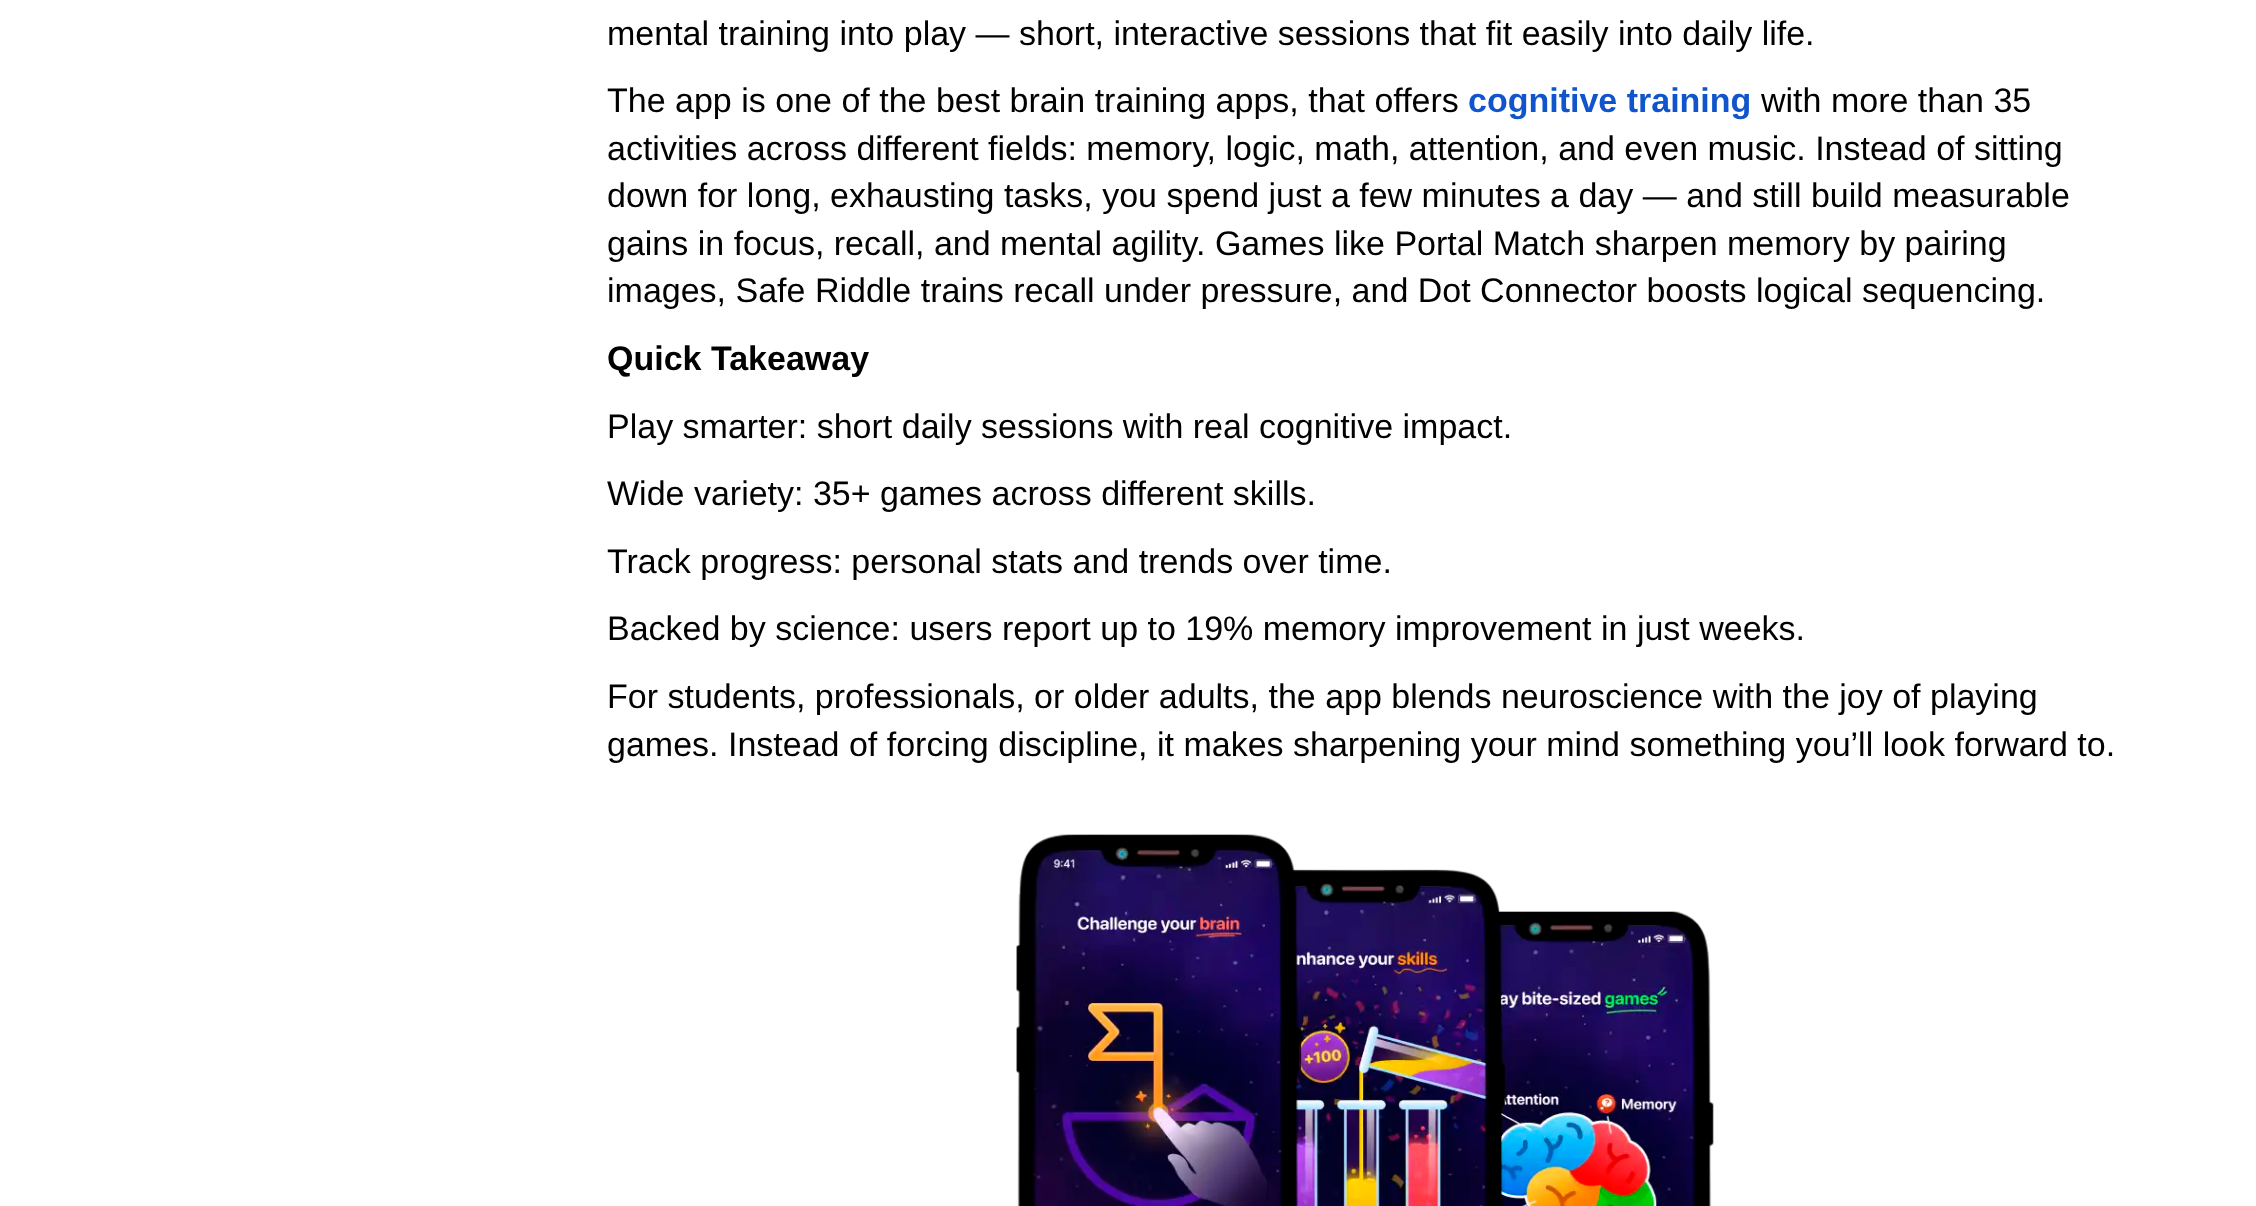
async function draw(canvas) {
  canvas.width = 2256
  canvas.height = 1206
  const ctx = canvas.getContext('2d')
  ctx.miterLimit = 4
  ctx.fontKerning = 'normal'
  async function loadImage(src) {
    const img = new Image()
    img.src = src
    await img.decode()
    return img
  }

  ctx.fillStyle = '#fff'
  ctx.fillRect(0, 0, 2256, 1206)
  ctx.font = '34px Liberation Sans'
  ctx.fillStyle = '#000'
  ctx.fillText('mental training into play — short, interactive sessions that fit easily into daily life.', 607, 45)
  ctx.fillText('The app is one of the best brain training apps, that offers', 607, 112)
  ctx.font = 'bold 34px Liberation Sans'
  ctx.fillStyle = '#15c'
  ctx.fillText('cognitive training', 1468, 112)
  ctx.font = '34px Liberation Sans'
  ctx.fillStyle = '#000'
  ctx.fillText('with more than 35', 1761, 112)
  ctx.fillText('activities across different fields: memory, logic, math, attention, and even music. Instead of sitting', 607, 160)
  ctx.fillText('down for long, exhausting tasks, you spend just a few minutes a day — and still build measurable', 607, 207)
  ctx.fillText('gains in focus, recall, and mental agility. Games like Portal Match sharpen memory by pairing', 607, 255)
  ctx.fillText('images, Safe Riddle trains recall under pressure, and Dot Connector boosts logical sequencing.', 607, 302)
  ctx.font = 'bold 34px Liberation Sans'
  ctx.fillText('Quick Takeaway', 607, 370)
  ctx.font = '34px Liberation Sans'
  ctx.fillText('Play smarter: short daily sessions with real cognitive impact.', 607, 438)
  ctx.fillText('Wide variety: 35+ games across different skills.', 607, 505)
  ctx.fillText('Track progress: personal stats and trends over time.', 607, 573)
  ctx.fillText('Backed by science: users report up to 19% memory improvement in just weeks.', 607, 640)
  ctx.fillText('For students, professionals, or older adults, the app blends neuroscience with the joy of playing', 607, 708)
  ctx.fillText('games. Instead of forcing discipline, it makes sharpening your mind something you’ll look forward to.', 607, 756)
  ctx.drawImage(await loadImage('image0.png'), 1016, 834, 698, 372)
}

draw(document.querySelector('canvas'))
